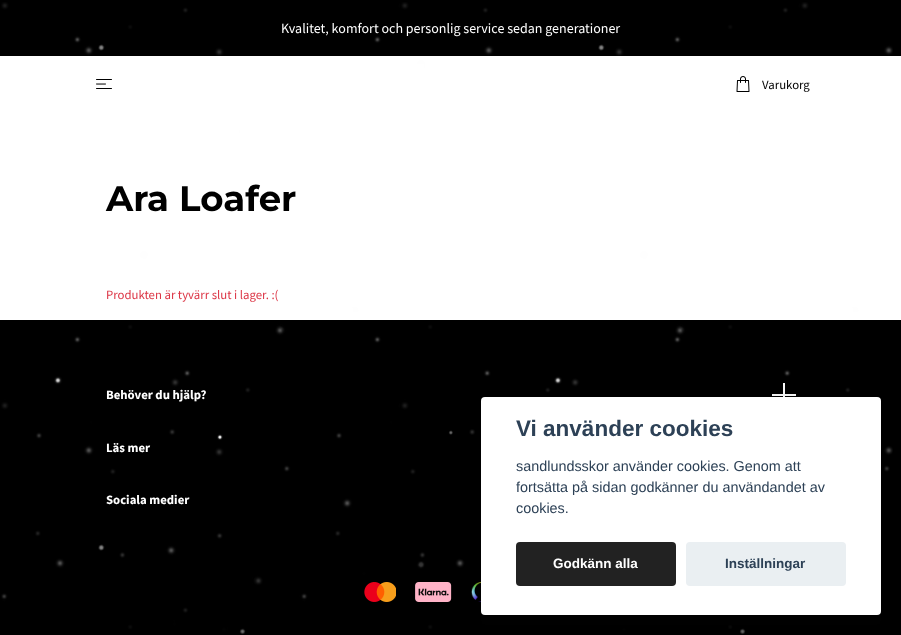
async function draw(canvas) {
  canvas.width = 901
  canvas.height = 635
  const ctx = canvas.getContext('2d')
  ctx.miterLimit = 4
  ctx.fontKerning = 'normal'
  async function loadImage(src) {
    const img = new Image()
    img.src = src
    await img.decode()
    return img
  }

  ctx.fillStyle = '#fff'
  ctx.fillRect(0, 0, 901, 635)
  ctx.fillStyle = '#000'
  ctx.fillRect(0, 0, 901, 56)
  ctx.font = '14px Source Sans Pro'
  ctx.fillStyle = '#fff'
  ctx.fillText('Kvalitet, komfort och personlig service sedan generationer', 281, 33)
  ctx.drawImage(await loadImage('image1.png'), 96, 79, 16, 10)
  ctx.drawImage(await loadImage('image2.png'), 736, 76, 14, 16)
  ctx.font = '12.75px Source Sans Pro'
  ctx.fillStyle = '#000'
  ctx.fillText('Varukorg', 762, 89)
  ctx.font = 'bold 35.5px Montserrat'
  ctx.fillText('Ara Loafer', 106, 211)
  ctx.font = '12.75px Source Sans Pro'
  ctx.fillStyle = '#dc3545'
  ctx.fillText('Produkten är tyvärr slut i lager. :(', 106, 299)
  ctx.fillStyle = '#000'
  ctx.fillRect(0, 320, 901, 315)
  ctx.font = 'bold 12.75px Source Sans Pro'
  ctx.fillStyle = '#fff'
  ctx.fillText('Behöver du hjälp?', 106, 399)
  ctx.fillRect(783, 383, 2, 14)
  ctx.fillRect(772, 394, 24, 2)
  ctx.fillText('Läs mer', 106, 452)
  ctx.fillText('Sociala medier', 106, 504)
  ctx.drawImage(await loadImage('image3.png'), 364, 582, 32, 20)
  ctx.drawImage(await loadImage('image4.png'), 415, 582, 37, 20)
  ctx.drawImage(await loadImage('image5.png'), 471, 582, 10, 20)
  ctx.drawImage(await loadImage('image0.png'), 1, 2, 892, 633)
  ctx.fillStyle = '#02020347'
  ctx.filter = 'blur(15px)'
  ctx.beginPath()
  ctx.roundRect(481, 407, 400, 218, 4)
  ctx.fill()
  ctx.filter = 'none'
  ctx.fillStyle = '#fff'
  ctx.beginPath()
  ctx.roundRect(481, 397, 400, 218, 4)
  ctx.fill()
  ctx.font = 'bold 22.5px Liberation Sans'
  ctx.fillStyle = '#2d4156'
  ctx.fillText('Vi använder cookies', 516, 436)
  ctx.font = '14.4px Liberation Sans'
  ctx.fillText('sandlundsskor använder cookies. Genom att', 516, 471)
  ctx.fillText('fortsätta på sidan godkänner du användandet av', 516, 492)
  ctx.fillText('cookies.', 516, 513)
  ctx.fillStyle = '#222'
  ctx.beginPath()
  ctx.roundRect(516, 542, 160, 44, 4)
  ctx.fill()
  ctx.font = 'bold 13.5px Liberation Sans'
  ctx.fillStyle = '#fff'
  ctx.fillText('Godkänn alla', 553, 568)
  ctx.fillStyle = '#eaeff2'
  ctx.beginPath()
  ctx.roundRect(686, 542, 160, 44, 4)
  ctx.fill()
  ctx.fillStyle = '#2d4156'
  ctx.fillText('Inställningar', 725, 568)
}

draw(document.querySelector('canvas'))
